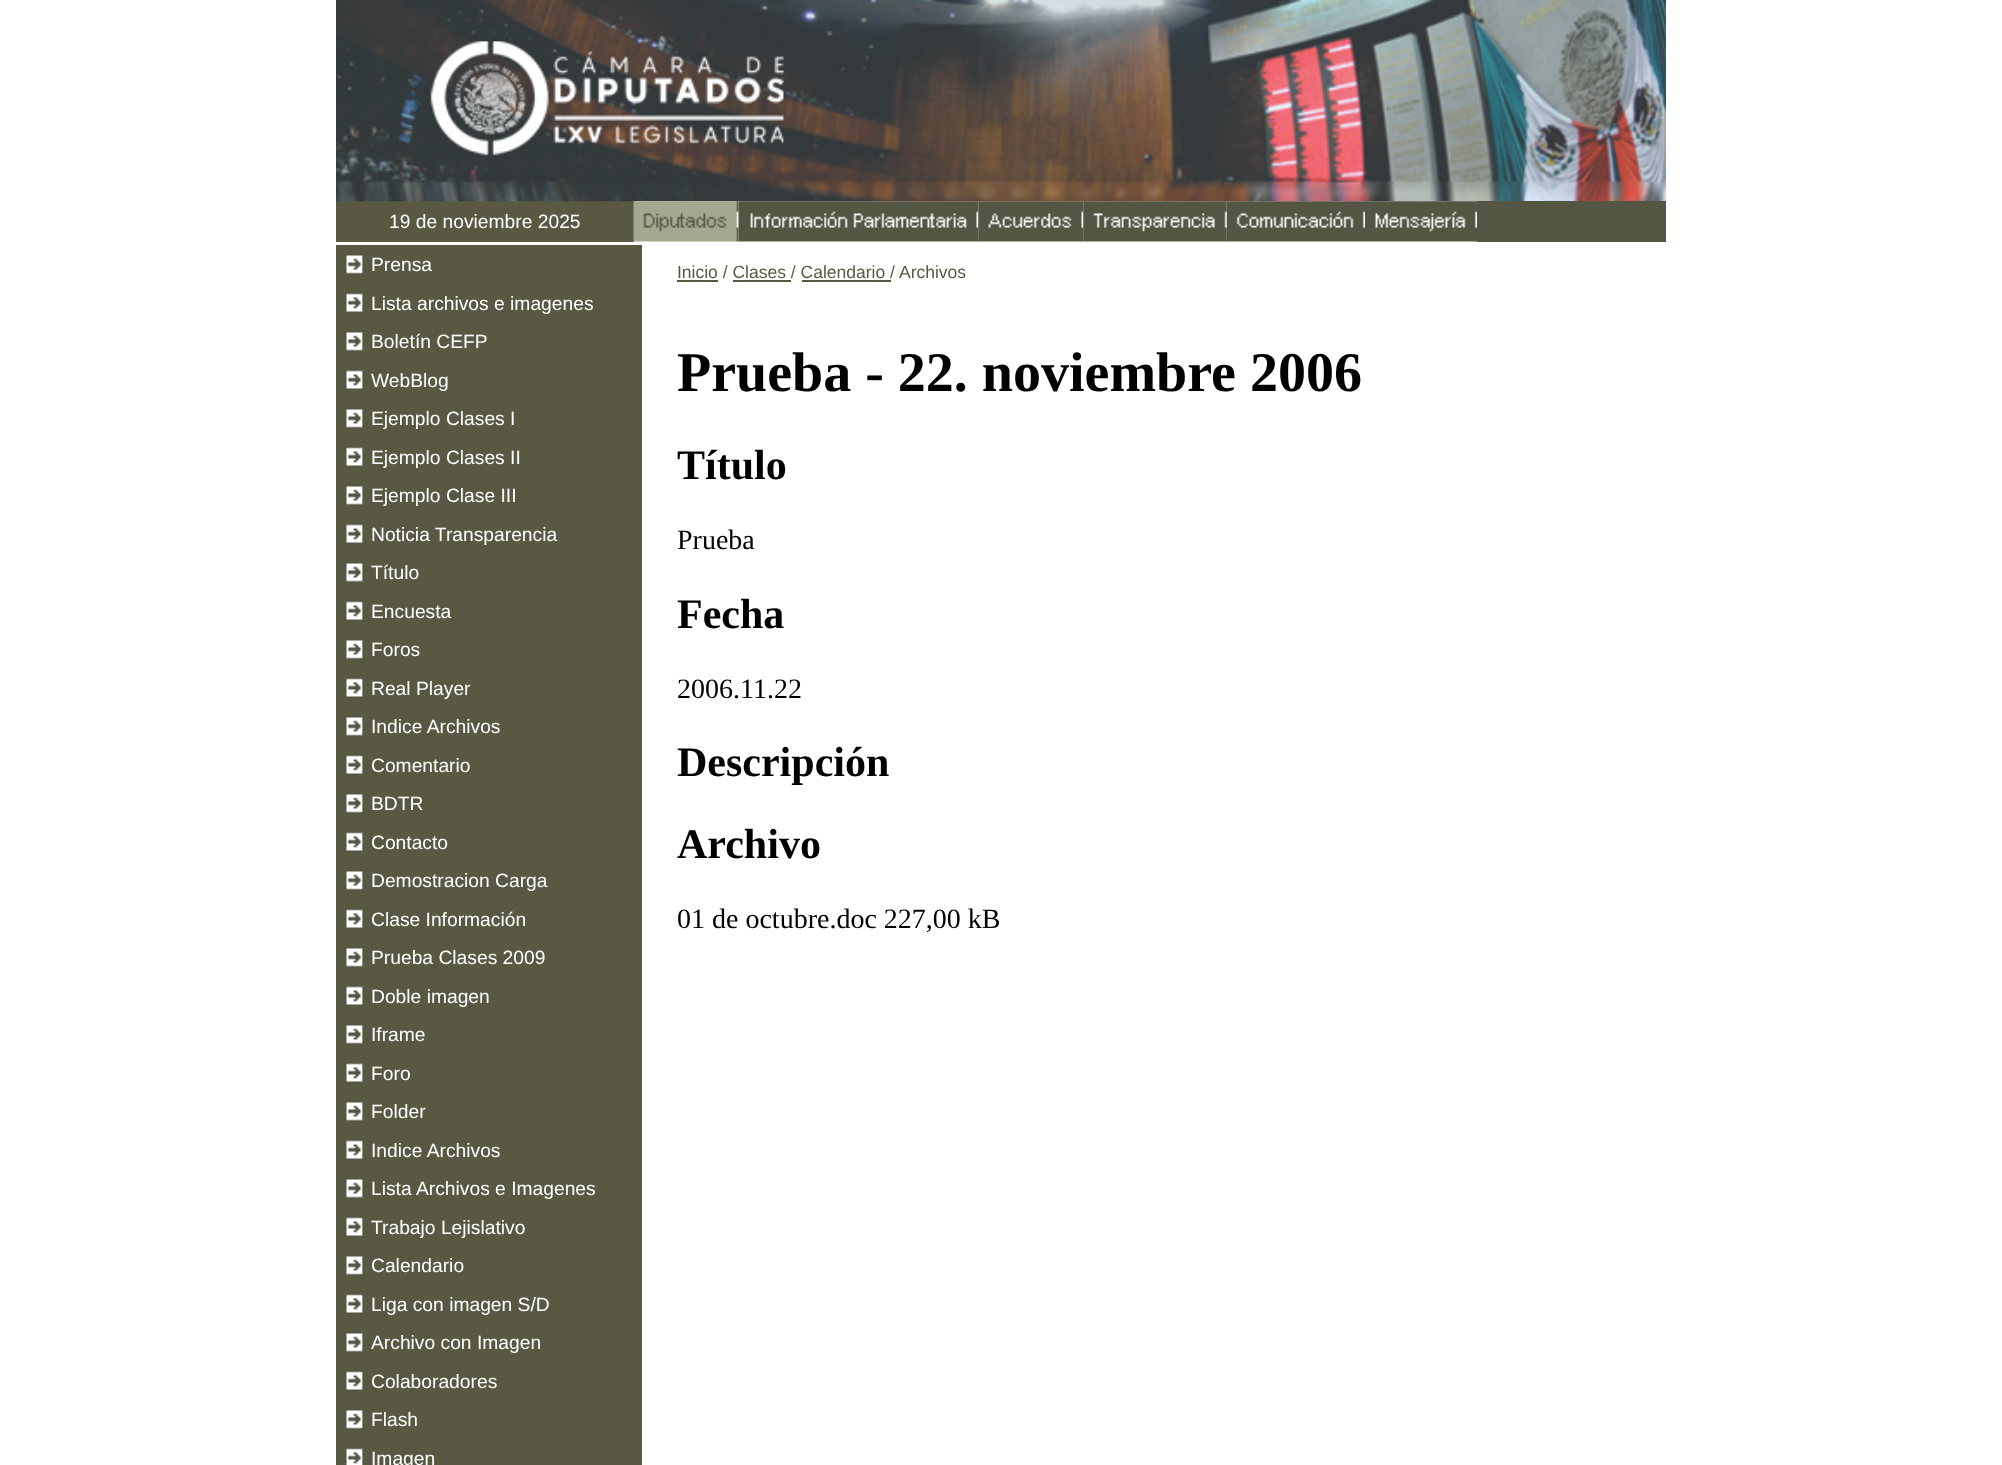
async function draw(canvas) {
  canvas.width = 2002
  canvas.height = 1465
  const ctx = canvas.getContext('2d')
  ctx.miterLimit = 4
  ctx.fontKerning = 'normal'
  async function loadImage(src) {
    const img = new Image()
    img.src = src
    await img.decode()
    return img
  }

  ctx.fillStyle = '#fff'
  ctx.fillRect(0, 0, 2002, 1465)
  ctx.fillStyle = '#595843'
  ctx.fillRect(336, 201, 298, 41)
  ctx.drawImage(await loadImage('image0.png'), 336, 0, 1330, 202)
  ctx.font = '19.25px Liberation Sans'
  ctx.fillStyle = '#fff'
  ctx.fillText('19 de noviembre 2025', 389, 228)
  ctx.drawImage(await loadImage('image1.png'), 633, 201, 106, 41)
  ctx.drawImage(await loadImage('image2.png'), 738, 201, 241, 41)
  ctx.drawImage(await loadImage('image3.png'), 978, 201, 106, 41)
  ctx.drawImage(await loadImage('image4.png'), 1083, 201, 144, 41)
  ctx.drawImage(await loadImage('image5.png'), 1226, 201, 139, 41)
  ctx.drawImage(await loadImage('image6.png'), 1365, 201, 112, 41)
  ctx.fillStyle = '#535643'
  ctx.fillRect(1477, 201, 189, 41)
  ctx.fillStyle = '#595843'
  ctx.fillRect(336, 245, 306, 1220)
  ctx.drawImage(await loadImage('image7.png'), 345, 254, 19, 21)
  ctx.fillStyle = '#fff'
  ctx.fillText('Prensa', 371, 271)
  ctx.drawImage(await loadImage('image8.png'), 345, 292, 19, 21)
  ctx.fillText('Lista archivos e imagenes', 371, 310)
  ctx.drawImage(await loadImage('image7.png'), 345, 331, 19, 21)
  ctx.fillText('Boletín CEFP', 371, 348)
  ctx.drawImage(await loadImage('image8.png'), 345, 369, 19, 21)
  ctx.fillText('WebBlog', 371, 387)
  ctx.drawImage(await loadImage('image7.png'), 345, 408, 19, 21)
  ctx.fillText('Ejemplo Clases I', 371, 425)
  ctx.drawImage(await loadImage('image8.png'), 345, 446, 19, 21)
  ctx.fillText('Ejemplo Clases II', 371, 464)
  ctx.drawImage(await loadImage('image7.png'), 345, 485, 19, 21)
  ctx.fillText('Ejemplo Clase III', 371, 502)
  ctx.drawImage(await loadImage('image8.png'), 345, 523, 19, 21)
  ctx.fillText('Noticia Transparencia', 371, 541)
  ctx.drawImage(await loadImage('image7.png'), 345, 562, 19, 21)
  ctx.fillText('Título', 371, 579)
  ctx.drawImage(await loadImage('image8.png'), 345, 600, 19, 21)
  ctx.fillText('Encuesta', 371, 618)
  ctx.drawImage(await loadImage('image7.png'), 345, 639, 19, 21)
  ctx.fillText('Foros', 371, 656)
  ctx.drawImage(await loadImage('image8.png'), 345, 677, 19, 21)
  ctx.fillText('Real Player', 371, 695)
  ctx.drawImage(await loadImage('image7.png'), 345, 716, 19, 21)
  ctx.fillText('Indice Archivos', 371, 733)
  ctx.drawImage(await loadImage('image8.png'), 345, 754, 19, 21)
  ctx.fillText('Comentario', 371, 772)
  ctx.drawImage(await loadImage('image7.png'), 345, 793, 19, 21)
  ctx.fillText('BDTR', 371, 810)
  ctx.drawImage(await loadImage('image8.png'), 345, 831, 19, 21)
  ctx.fillText('Contacto', 371, 849)
  ctx.drawImage(await loadImage('image7.png'), 345, 870, 19, 21)
  ctx.fillText('Demostracion Carga', 371, 887)
  ctx.drawImage(await loadImage('image8.png'), 345, 908, 19, 21)
  ctx.fillText('Clase Información', 371, 926)
  ctx.drawImage(await loadImage('image7.png'), 345, 947, 19, 21)
  ctx.fillText('Prueba Clases 2009', 371, 964)
  ctx.drawImage(await loadImage('image8.png'), 345, 985, 19, 21)
  ctx.fillText('Doble imagen', 371, 1003)
  ctx.drawImage(await loadImage('image7.png'), 345, 1024, 19, 21)
  ctx.fillText('Iframe', 371, 1041)
  ctx.drawImage(await loadImage('image8.png'), 345, 1062, 19, 21)
  ctx.fillText('Foro', 371, 1080)
  ctx.drawImage(await loadImage('image7.png'), 345, 1101, 19, 21)
  ctx.fillText('Folder', 371, 1118)
  ctx.drawImage(await loadImage('image8.png'), 345, 1139, 19, 21)
  ctx.fillText('Indice Archivos', 371, 1157)
  ctx.drawImage(await loadImage('image7.png'), 345, 1178, 19, 21)
  ctx.fillText('Lista Archivos e Imagenes', 371, 1195)
  ctx.drawImage(await loadImage('image8.png'), 345, 1216, 19, 21)
  ctx.fillText('Trabajo Lejislativo', 371, 1234)
  ctx.drawImage(await loadImage('image7.png'), 345, 1255, 19, 21)
  ctx.fillText('Calendario', 371, 1272)
  ctx.drawImage(await loadImage('image8.png'), 345, 1293, 19, 21)
  ctx.fillText('Liga con imagen S/D', 371, 1311)
  ctx.drawImage(await loadImage('image7.png'), 345, 1332, 19, 21)
  ctx.fillText('Archivo con Imagen', 371, 1349)
  ctx.drawImage(await loadImage('image8.png'), 345, 1370, 19, 21)
  ctx.fillText('Colaboradores', 371, 1388)
  ctx.drawImage(await loadImage('image7.png'), 345, 1409, 19, 21)
  ctx.fillText('Flash', 371, 1426)
  ctx.drawImage(await loadImage('image9.png'), 345, 1447, 19, 18)
  ctx.fillText('Imagen', 371, 1465)
  ctx.font = '17.5px Liberation Sans'
  ctx.fillStyle = '#595843'
  ctx.fillText('Inicio / Clases / Calendario /', 677, 278)
  ctx.fillRect(677, 280, 41, 2)
  ctx.fillText('Archivos', 899, 278)
  ctx.fillRect(733, 280, 58, 2)
  ctx.fillRect(802, 280, 89, 2)
  ctx.font = 'bold 56px Liberation Serif'
  ctx.fillStyle = '#000'
  ctx.fillText('Prueba - 22. noviembre 2006', 677, 391)
  ctx.font = 'bold 42px Liberation Serif'
  ctx.fillText('Título', 677, 479)
  ctx.font = '28px Liberation Serif'
  ctx.fillText('Prueba', 677, 549)
  ctx.font = 'bold 42px Liberation Serif'
  ctx.fillText('Fecha', 677, 628)
  ctx.font = '28px Liberation Serif'
  ctx.fillText('2006.11.22', 677, 698)
  ctx.font = 'bold 42px Liberation Serif'
  ctx.fillText('Descripción', 677, 776)
  ctx.fillText('Archivo', 677, 858)
  ctx.font = '28px Liberation Serif'
  ctx.fillText('01 de octubre.doc 227,00 kB', 677, 928)
}

draw(document.querySelector('canvas'))
